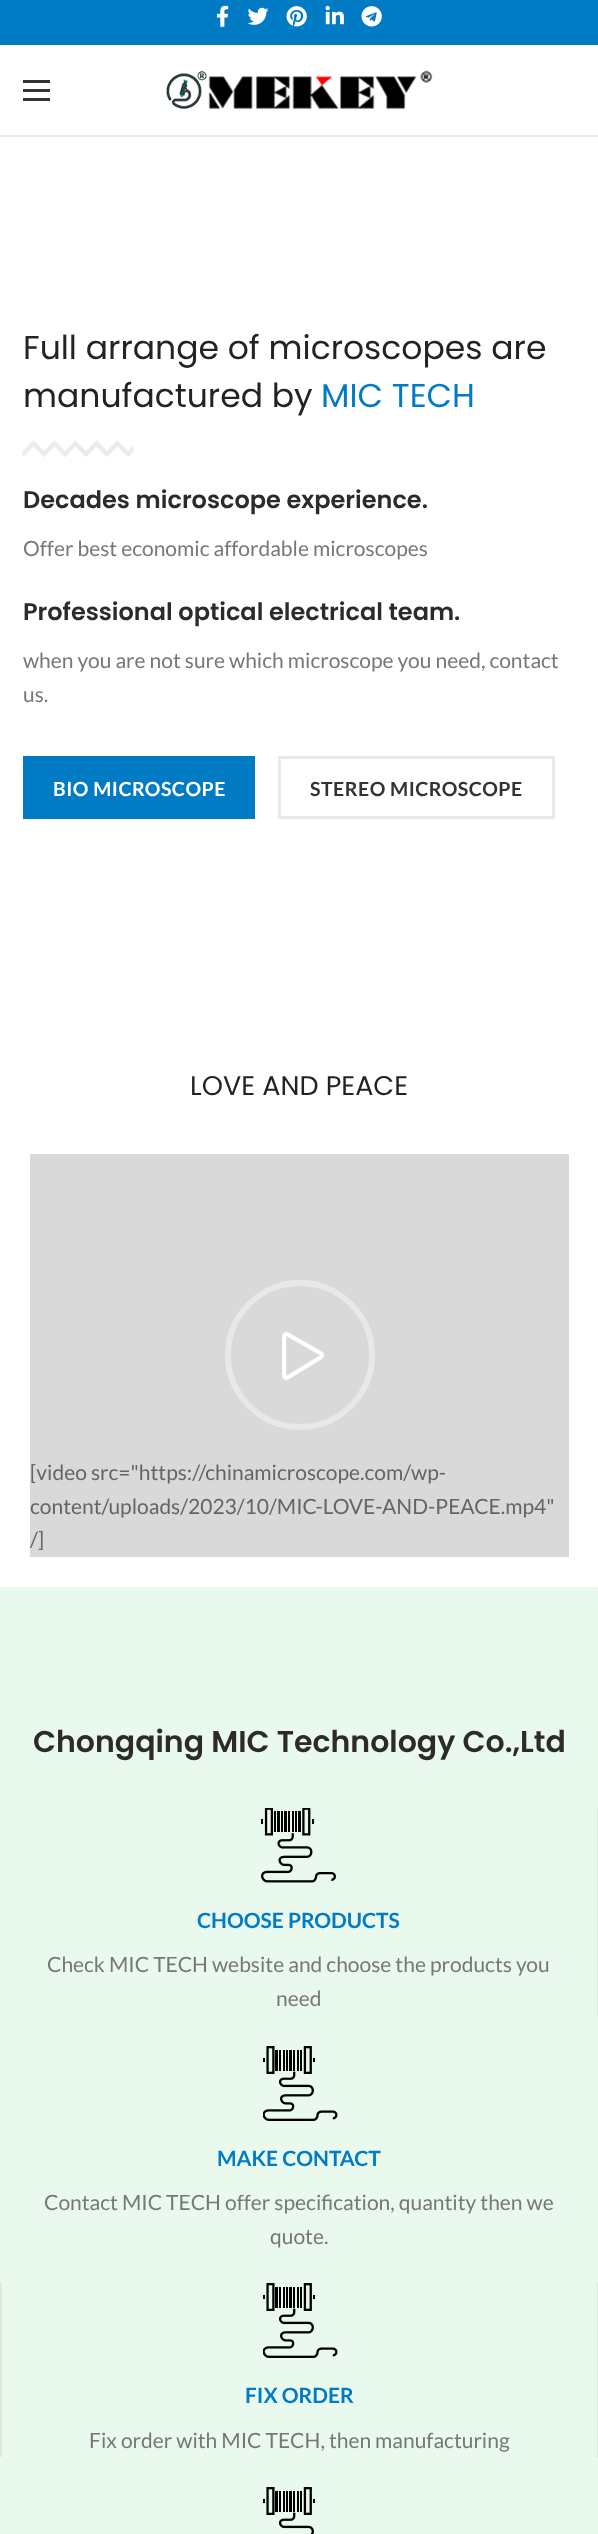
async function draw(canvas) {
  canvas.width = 598
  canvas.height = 2534
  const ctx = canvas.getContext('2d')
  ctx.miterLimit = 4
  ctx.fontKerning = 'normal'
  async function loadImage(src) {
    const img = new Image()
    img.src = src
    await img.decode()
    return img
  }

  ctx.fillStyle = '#fff'
  ctx.fillRect(0, 0, 598, 2534)
  ctx.fillStyle = '#007bc4'
  ctx.fillRect(0, 0, 598, 45)
  ctx.drawImage(await loadImage('image0.png'), 216, 5, 13, 22)
  ctx.drawImage(await loadImage('image1.png'), 247, 7, 22, 18)
  ctx.drawImage(await loadImage('image2.png'), 286, 6, 21, 21)
  ctx.drawImage(await loadImage('image3.png'), 325, 5, 19, 20)
  ctx.drawImage(await loadImage('image4.png'), 361, 6, 21, 21)
  ctx.fillStyle = '#e8e8e8'
  ctx.fillRect(0, 135, 598, 2)
  ctx.fillStyle = '#333'
  ctx.fillRect(23, 89, 27, 3)
  ctx.fillRect(23, 80, 27, 3)
  ctx.fillRect(23, 98, 27, 3)
  ctx.drawImage(await loadImage('image5.png'), 166, 70, 267, 40)
  ctx.font = '33px Poppins'
  ctx.fillStyle = '#232323'
  ctx.fillText('Full arrange of microscopes are', 23, 359)
  ctx.fillText('manufactured by', 23, 407)
  ctx.fillStyle = '#007bc4'
  ctx.fillText('MIC TECH', 321, 407)
  ctx.drawImage(await loadImage('image6.png'), 22, 439, 112, 19)
  ctx.font = '600 24px Poppins'
  ctx.fillStyle = '#2d2a2a'
  ctx.fillText('Decades microscope experience.', 23, 508)
  ctx.font = '21px Lato'
  ctx.fillStyle = '#777'
  ctx.fillText('Offer best economic affordable microscopes', 23, 556)
  ctx.font = '600 24px Poppins'
  ctx.fillStyle = '#2d2a2a'
  ctx.fillText('Professional optical electrical team.', 23, 620)
  ctx.font = '21px Lato'
  ctx.fillStyle = '#777'
  ctx.fillText('when you are not sure which microscope you need, contact', 23, 668)
  ctx.fillText('us.', 23, 702)
  ctx.fillStyle = '#007bc4'
  ctx.fillRect(23, 756, 232, 63)
  ctx.letterSpacing = '0.5px'
  ctx.font = 'bold 19.5px Lato'
  ctx.fillStyle = '#fff'
  ctx.fillText('BIO MICROSCOPE', 53, 796)
  ctx.strokeStyle = '#e9e9e9'
  ctx.lineWidth = 3
  ctx.strokeRect(279.5, 757.5, 274, 60)
  ctx.fillStyle = '#333'
  ctx.fillText('STEREO MICROSCOPE', 310, 796)
  ctx.letterSpacing = '0px'
  ctx.font = '27px Poppins'
  ctx.fillStyle = '#232323'
  ctx.fillText('LOVE AND PEACE', 190, 1095)
  ctx.fillStyle = '#d9d9d9'
  ctx.fillRect(30, 1154, 539, 403)
  ctx.beginPath()
  ctx.arc(300, 1355, 72, 0, 2 * Math.PI)
  ctx.strokeStyle = '#e8e8e8'
  ctx.lineWidth = 6
  ctx.stroke()
  ctx.drawImage(await loadImage('image7.png'), 282, 1332, 42, 48)
  ctx.font = '21px Lato'
  ctx.fillStyle = '#656565'
  ctx.fillText('[video src="https://chinamicroscope.com/wp-', 30, 1480)
  ctx.fillText('content/uploads/2023/10/MIC-LOVE-AND-PEACE.mp4"', 30, 1514)
  ctx.fillText('/]', 30, 1547)
  ctx.fillStyle = '#eaf9ee'
  ctx.fillRect(0, 1587, 598, 947)
  ctx.font = '600 30px Poppins'
  ctx.fillStyle = '#2d2a2a'
  ctx.fillText('Chongqing MIC Technology Co.,Ltd', 33, 1752)
  ctx.fillStyle = '#dce9df'
  ctx.fillRect(597, 1808, 1, 208)
  ctx.drawImage(await loadImage('image8.png'), 261, 1808, 75, 75)
  ctx.font = 'bold 21px Lato'
  ctx.fillStyle = '#007bc4'
  ctx.fillText('CHOOSE PRODUCTS', 197, 1928)
  ctx.font = '21px Lato'
  ctx.fillStyle = '#777'
  ctx.fillText('Check MIC TECH website and choose the products you', 47, 1972)
  ctx.fillText('need', 276, 2006)
  ctx.drawImage(await loadImage('image9.png'), 263, 2046, 75, 75)
  ctx.font = 'bold 21px Lato'
  ctx.fillStyle = '#007bc4'
  ctx.fillText('MAKE CONTACT', 217, 2166)
  ctx.font = '21px Lato'
  ctx.fillStyle = '#777'
  ctx.fillText('Contact MIC TECH offer specification, quantity then we', 44, 2210)
  ctx.fillText('quote.', 270, 2244)
  ctx.fillStyle = '#dce9df'
  ctx.fillRect(597, 2283, 1, 174)
  ctx.fillRect(0, 2283, 2, 174)
  ctx.drawImage(await loadImage('image9.png'), 263, 2283, 75, 75)
  ctx.font = 'bold 21px Lato'
  ctx.fillStyle = '#007bc4'
  ctx.fillText('FIX ORDER', 245, 2403)
  ctx.font = '21px Lato'
  ctx.fillStyle = '#777'
  ctx.fillText('Fix order with MIC TECH, then manufacturing', 89, 2448)
  ctx.drawImage(await loadImage('image10.png'), 263, 2487, 52, 47)
}

draw(document.querySelector('canvas'))
